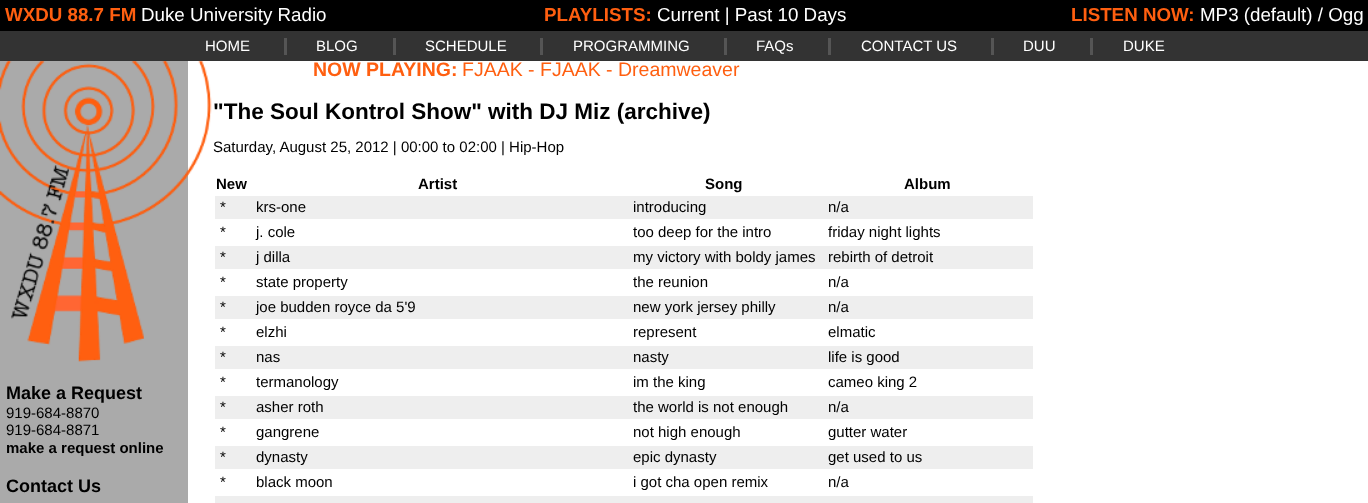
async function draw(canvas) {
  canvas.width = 1368
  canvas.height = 503
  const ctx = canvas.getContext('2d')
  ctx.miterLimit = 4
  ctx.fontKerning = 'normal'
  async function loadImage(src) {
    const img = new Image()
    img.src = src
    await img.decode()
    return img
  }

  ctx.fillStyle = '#fff'
  ctx.fillRect(0, 0, 1368, 503)
  ctx.fillStyle = '#000'
  ctx.fillRect(0, 0, 1368, 31)
  ctx.font = 'bold 18.75px Liberation Sans'
  ctx.fillStyle = '#ff5f10'
  ctx.fillText('WXDU 88.7 FM', 5, 21)
  ctx.font = '18.75px Liberation Sans'
  ctx.fillStyle = '#fff'
  ctx.fillText('Duke University Radio', 141, 21)
  ctx.font = 'bold 18.75px Liberation Sans'
  ctx.fillStyle = '#ff5f10'
  ctx.fillText('PLAYLISTS:', 544, 21)
  ctx.font = '18.75px Liberation Sans'
  ctx.fillStyle = '#fff'
  ctx.fillText('Current | Past 10 Days', 657, 21)
  ctx.font = 'bold 18.75px Liberation Sans'
  ctx.fillStyle = '#ff5f10'
  ctx.fillText('LISTEN NOW:', 1071, 21)
  ctx.font = '18.75px Liberation Sans'
  ctx.fillStyle = '#fff'
  ctx.fillText('MP3 (default) / Ogg', 1200, 21)
  ctx.fillStyle = '#333'
  ctx.fillRect(0, 31, 1368, 30)
  ctx.font = '15px Liberation Sans'
  ctx.fillStyle = '#fff'
  ctx.fillText('HOME', 205, 51)
  ctx.fillText('BLOG', 316, 51)
  ctx.fillStyle = '#555'
  ctx.fillRect(284, 38, 3, 17)
  ctx.fillStyle = '#fff'
  ctx.fillText('SCHEDULE', 425, 51)
  ctx.fillStyle = '#555'
  ctx.fillRect(393, 38, 3, 17)
  ctx.fillStyle = '#fff'
  ctx.fillText('PROGRAMMING', 573, 51)
  ctx.fillStyle = '#555'
  ctx.fillRect(540, 38, 3, 17)
  ctx.fillStyle = '#fff'
  ctx.fillText('FAQs', 756, 51)
  ctx.fillStyle = '#555'
  ctx.fillRect(724, 38, 3, 17)
  ctx.fillStyle = '#fff'
  ctx.fillText('CONTACT US', 861, 51)
  ctx.fillStyle = '#555'
  ctx.fillRect(828, 38, 3, 17)
  ctx.fillStyle = '#fff'
  ctx.fillText('DUU', 1023, 51)
  ctx.fillStyle = '#555'
  ctx.fillRect(991, 38, 3, 17)
  ctx.fillStyle = '#fff'
  ctx.fillText('DUKE', 1123, 51)
  ctx.fillStyle = '#555'
  ctx.fillRect(1090, 38, 3, 17)
  ctx.fillStyle = '#aaa'
  ctx.fillRect(0, 61, 188, 442)
  ctx.drawImage(await loadImage('image0.png'), 0, 61, 212, 301)
  ctx.font = 'bold 18px Liberation Sans'
  ctx.fillStyle = '#000'
  ctx.fillText('Make a Request', 6, 399)
  ctx.font = '15px Liberation Sans'
  ctx.fillText('919-684-8870', 6, 418)
  ctx.fillText('919-684-8871', 6, 435)
  ctx.font = 'bold 15px Liberation Sans'
  ctx.fillText('make a request online', 6, 453)
  ctx.font = 'bold 18px Liberation Sans'
  ctx.fillText('Contact Us', 6, 492)
  ctx.font = 'bold 19.5px Liberation Sans'
  ctx.fillStyle = '#ff5f10'
  ctx.fillText('NOW PLAYING:', 313, 76)
  ctx.font = '19.5px Liberation Sans'
  ctx.fillText('FJAAK - FJAAK - Dreamweaver', 462, 76)
  ctx.font = 'bold 22.5px Liberation Sans'
  ctx.fillStyle = '#000'
  ctx.fillText('"The Soul Kontrol Show" with DJ Miz (archive)', 213, 119)
  ctx.font = '15px Liberation Sans'
  ctx.fillText('Saturday, August 25, 2012 | 00:00 to 02:00 | Hip-Hop', 213, 152)
  ctx.font = 'bold 15px Liberation Sans'
  ctx.fillText('New', 216, 189)
  ctx.fillText('Artist', 418, 189)
  ctx.fillText('Song', 705, 189)
  ctx.fillText('Album', 904, 189)
  ctx.fillStyle = '#eee'
  ctx.fillRect(215, 196, 818, 23)
  ctx.font = '15px Liberation Sans'
  ctx.fillStyle = '#000'
  ctx.fillText('*', 220, 212)
  ctx.fillText('krs-one', 256, 212)
  ctx.fillText('introducing', 633, 212)
  ctx.fillText('n/a', 828, 212)
  ctx.fillText('*', 220, 237)
  ctx.fillText('j. cole', 256, 237)
  ctx.fillText('too deep for the intro', 633, 237)
  ctx.fillText('friday night lights', 828, 237)
  ctx.fillStyle = '#eee'
  ctx.fillRect(215, 246, 818, 23)
  ctx.fillStyle = '#000'
  ctx.fillText('*', 220, 262)
  ctx.fillText('j dilla', 256, 262)
  ctx.fillText('my victory with boldy james', 633, 262)
  ctx.fillText('rebirth of detroit', 828, 262)
  ctx.fillText('*', 220, 287)
  ctx.fillText('state property', 256, 287)
  ctx.fillText('the reunion', 633, 287)
  ctx.fillText('n/a', 828, 287)
  ctx.fillStyle = '#eee'
  ctx.fillRect(215, 296, 818, 23)
  ctx.fillStyle = '#000'
  ctx.fillText('*', 220, 312)
  ctx.fillText('joe budden royce da 5\'9', 256, 312)
  ctx.fillText('new york jersey philly', 633, 312)
  ctx.fillText('n/a', 828, 312)
  ctx.fillText('*', 220, 337)
  ctx.fillText('elzhi', 256, 337)
  ctx.fillText('represent', 633, 337)
  ctx.fillText('elmatic', 828, 337)
  ctx.fillStyle = '#eee'
  ctx.fillRect(215, 346, 818, 23)
  ctx.fillStyle = '#000'
  ctx.fillText('*', 220, 362)
  ctx.fillText('nas', 256, 362)
  ctx.fillText('nasty', 633, 362)
  ctx.fillText('life is good', 828, 362)
  ctx.fillText('*', 220, 387)
  ctx.fillText('termanology', 256, 387)
  ctx.fillText('im the king', 633, 387)
  ctx.fillText('cameo king 2', 828, 387)
  ctx.fillStyle = '#eee'
  ctx.fillRect(215, 396, 818, 23)
  ctx.fillStyle = '#000'
  ctx.fillText('*', 220, 412)
  ctx.fillText('asher roth', 256, 412)
  ctx.fillText('the world is not enough', 633, 412)
  ctx.fillText('n/a', 828, 412)
  ctx.fillText('*', 220, 437)
  ctx.fillText('gangrene', 256, 437)
  ctx.fillText('not high enough', 633, 437)
  ctx.fillText('gutter water', 828, 437)
  ctx.fillStyle = '#eee'
  ctx.fillRect(215, 446, 818, 23)
  ctx.fillStyle = '#000'
  ctx.fillText('*', 220, 462)
  ctx.fillText('dynasty', 256, 462)
  ctx.fillText('epic dynasty', 633, 462)
  ctx.fillText('get used to us', 828, 462)
  ctx.fillText('*', 220, 487)
  ctx.fillText('black moon', 256, 487)
  ctx.fillText('i got cha open remix', 633, 487)
  ctx.fillText('n/a', 828, 487)
  ctx.fillStyle = '#eee'
  ctx.fillRect(215, 496, 818, 7)
}

draw(document.querySelector('canvas'))
